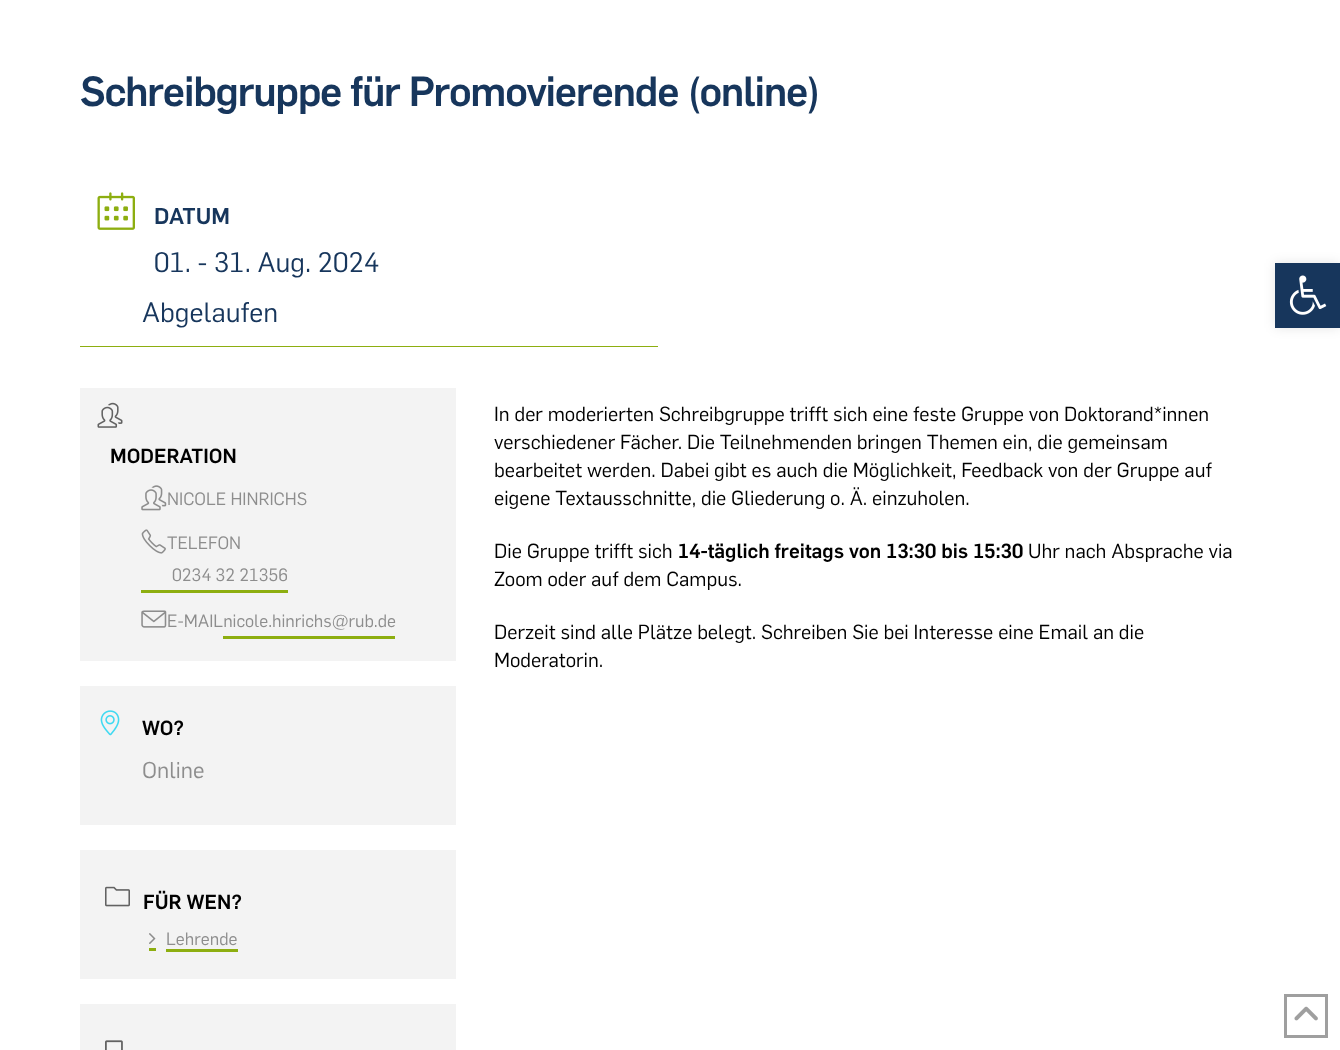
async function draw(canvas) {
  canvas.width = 1340
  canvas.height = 1050
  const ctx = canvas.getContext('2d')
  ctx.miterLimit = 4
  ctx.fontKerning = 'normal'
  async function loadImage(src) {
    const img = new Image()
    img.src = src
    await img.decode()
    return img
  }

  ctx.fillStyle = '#fff'
  ctx.fillRect(0, 0, 1340, 1050)
  ctx.letterSpacing = '-1.25px'
  ctx.font = 'bold 41.25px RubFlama'
  ctx.fillStyle = '#17365c'
  ctx.fillText('Schreibgruppe für Promovierende (online)', 80, 106)
  ctx.fillStyle = '#8dae10'
  ctx.fillRect(80, 346, 578, 1)
  ctx.drawImage(await loadImage('image0.png'), 97, 192, 38, 38)
  ctx.letterSpacing = '0px'
  ctx.font = 'bold 22.5px RubFlama'
  ctx.fillStyle = '#17365c'
  ctx.fillText('DATUM', 154, 224)
  ctx.font = '27.5px RubFlama'
  ctx.fillText('01. - 31. Aug. 2024', 154, 272)
  ctx.fillText('Abgelaufen', 142, 322)
  ctx.fillStyle = '#f3f3f3'
  ctx.fillRect(80, 388, 376, 273)
  ctx.drawImage(await loadImage('image1.png'), 97, 402, 26, 26)
  ctx.font = 'bold 20px RubFlama'
  ctx.fillStyle = '#000'
  ctx.fillText('MODERATION', 110, 463)
  ctx.drawImage(await loadImage('image2.png'), 141, 485, 26, 26)
  ctx.font = '17.5px RubFlama'
  ctx.fillStyle = '#8d8d8d'
  ctx.fillText('NICOLE HINRICHS', 167, 505)
  ctx.drawImage(await loadImage('image3.png'), 141, 529, 25, 25)
  ctx.fillText('TELEFON', 167, 549)
  ctx.fillStyle = '#8dae10'
  ctx.fillRect(141, 590, 147, 3)
  ctx.fillStyle = '#8d8d8d'
  ctx.fillText('0234 32 21356', 172, 581)
  ctx.drawImage(await loadImage('image4.png'), 141, 610, 26, 18)
  ctx.fillText('E-MAILnicole.hinrichs@rub.de', 167, 627)
  ctx.fillStyle = '#8dae10'
  ctx.fillRect(223, 636, 172, 3)
  ctx.fillStyle = '#f3f3f3'
  ctx.fillRect(80, 686, 376, 139)
  ctx.drawImage(await loadImage('image5.png'), 100, 710, 20, 26)
  ctx.font = 'bold 20px RubFlama'
  ctx.fillStyle = '#000'
  ctx.fillText('WO?', 142, 735)
  ctx.font = '22.5px RubFlama'
  ctx.fillStyle = '#8d8d8d'
  ctx.fillText('Online', 142, 778)
  ctx.fillStyle = '#f3f3f3'
  ctx.fillRect(80, 850, 376, 129)
  ctx.drawImage(await loadImage('image6.png'), 105, 886, 25, 21)
  ctx.font = 'bold 20px RubFlama'
  ctx.fillStyle = '#000'
  ctx.fillText('FÜR WEN?', 143, 909)
  ctx.drawImage(await loadImage('image7.png'), 149, 933, 7, 11)
  ctx.font = '17.5px RubFlama'
  ctx.fillStyle = '#8d8d8d'
  ctx.fillText('Lehrende', 166, 945)
  ctx.fillStyle = '#8dae10'
  ctx.fillRect(149, 948, 7, 3)
  ctx.fillRect(166, 949, 72, 3)
  ctx.fillStyle = '#f3f3f3'
  ctx.fillRect(80, 1004, 376, 46)
  ctx.drawImage(await loadImage('image8.png'), 105, 1040, 18, 10)
  ctx.font = '20px RubFlama'
  ctx.fillStyle = '#000'
  ctx.fillText('In der moderierten Schreibgruppe trifft sich eine feste Gruppe von Doktorand*innen', 494, 421)
  ctx.fillText('verschiedener Fächer. Die Teilnehmenden bringen Themen ein, die gemeinsam', 494, 449)
  ctx.fillText('bearbeitet werden. Dabei gibt es auch die Möglichkeit, Feedback von der Gruppe auf', 494, 477)
  ctx.fillText('eigene Textausschnitte, die Gliederung o. Ä. einzuholen.', 494, 505)
  ctx.fillText('Die Gruppe trifft sich', 494, 558)
  ctx.font = 'bold 20px RubFlama'
  ctx.fillText('14-täglich freitags von 13:30 bis 15:30', 678, 558)
  ctx.font = '20px RubFlama'
  ctx.fillText('Uhr nach Absprache via', 1028, 558)
  ctx.fillText('Zoom oder auf dem Campus.', 494, 586)
  ctx.fillText('Derzeit sind alle Plätze belegt. Schreiben Sie bei Interesse eine Email an die', 494, 639)
  ctx.fillText('Moderatorin.', 494, 667)
  ctx.strokeStyle = '#9f9f9f'
  ctx.lineWidth = 3
  ctx.strokeRect(1285.5, 995.5, 41, 41)
  ctx.drawImage(await loadImage('image9.png'), 1294, 1006, 24, 15)
  ctx.fillStyle = '#0000001a'
  ctx.filter = 'blur(6px)'
  ctx.beginPath()
  ctx.rect(1275, 263, 65, 65)
  ctx.fill()
  ctx.filter = 'none'
  ctx.fillStyle = '#17365c'
  ctx.fillRect(1275, 263, 65, 65)
  ctx.drawImage(await loadImage('image10.png'), 1289, 275, 38, 40)
}

draw(document.querySelector('canvas'))
